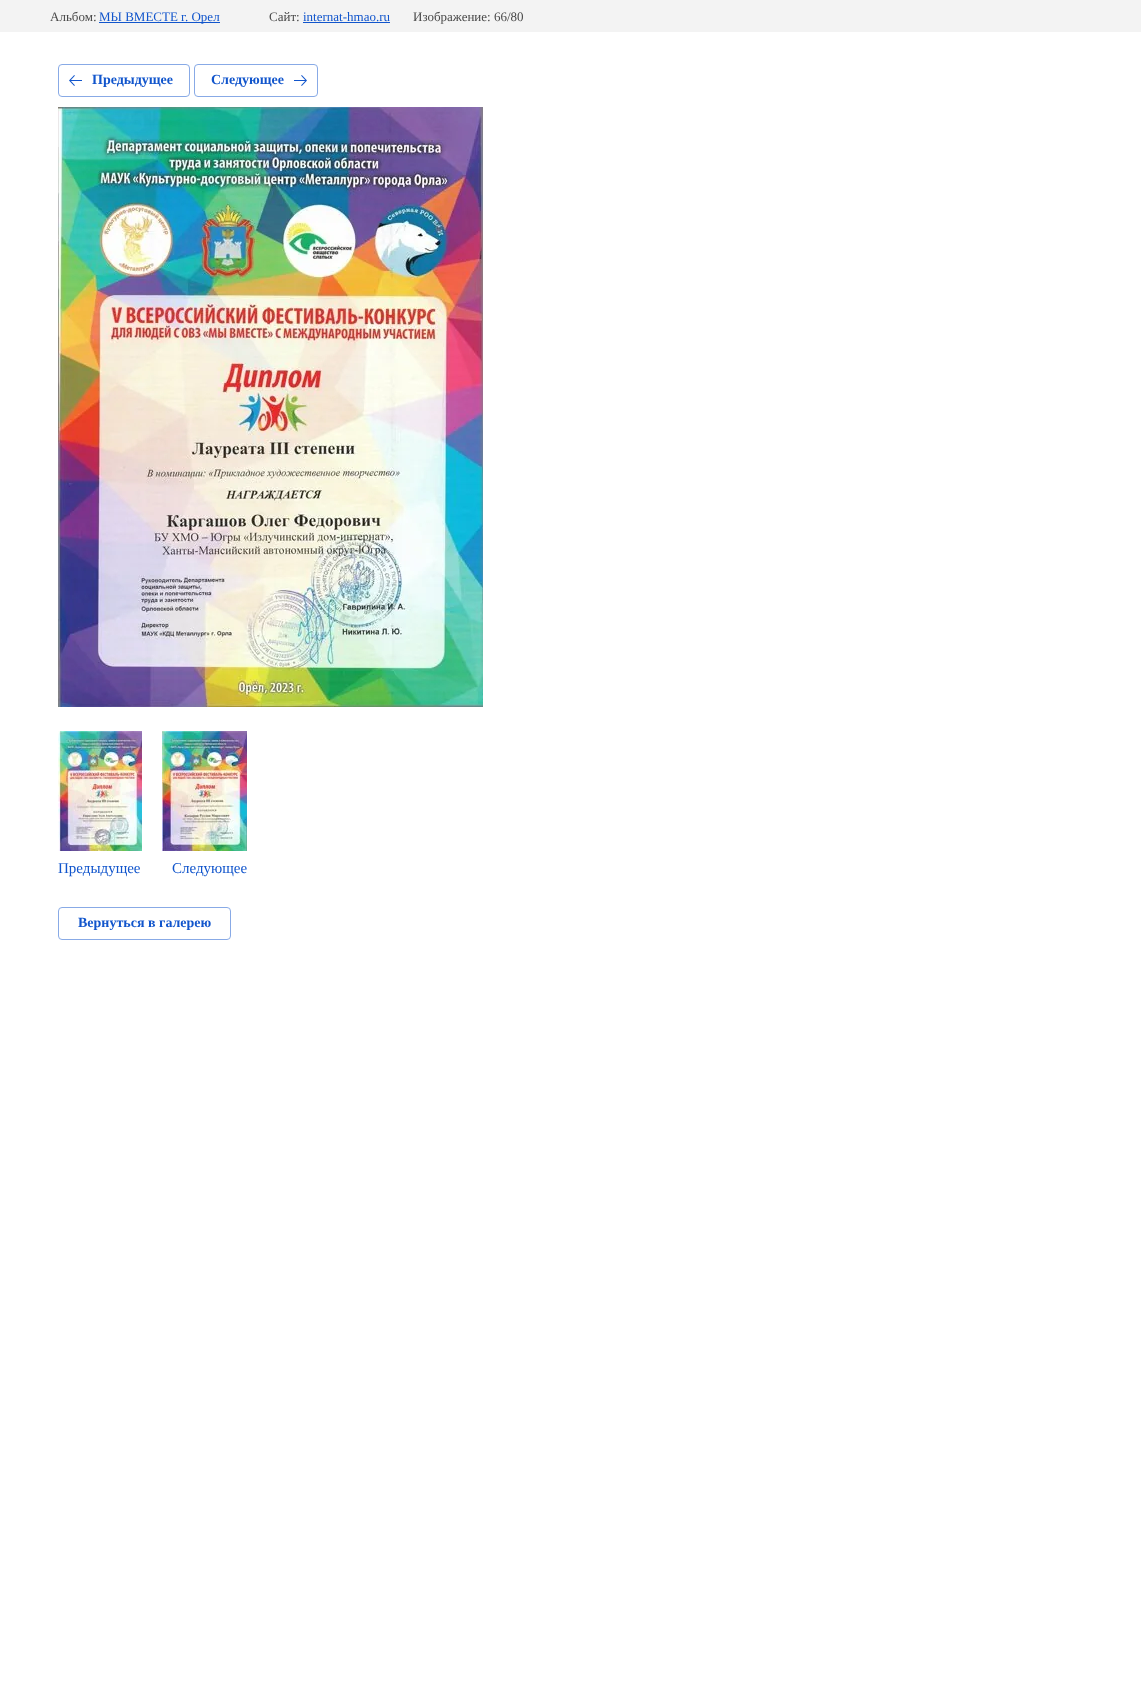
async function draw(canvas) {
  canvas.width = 1141
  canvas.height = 1701
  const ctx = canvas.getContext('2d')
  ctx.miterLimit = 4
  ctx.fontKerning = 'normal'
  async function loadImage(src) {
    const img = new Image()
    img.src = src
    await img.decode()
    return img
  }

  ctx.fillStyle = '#fff'
  ctx.fillRect(0, 0, 1141, 1701)
  ctx.fillStyle = '#f3f3f3'
  ctx.fillRect(0, 0, 1141, 32)
  ctx.font = '13px Liberation Serif'
  ctx.fillStyle = '#484848'
  ctx.fillText('Альбом:', 50, 21)
  ctx.fillStyle = '#15c'
  ctx.fillRect(99, 22, 121, 1)
  ctx.fillText('МЫ ВМЕСТЕ г. Орел', 99, 21)
  ctx.fillStyle = '#484848'
  ctx.fillText('Сайт:', 269, 21)
  ctx.fillStyle = '#15c'
  ctx.fillText('internat-hmao.ru', 303, 21)
  ctx.fillRect(303, 22, 87, 1)
  ctx.fillStyle = '#484848'
  ctx.fillText('Изображение: 66/80', 413, 21)
  ctx.beginPath()
  ctx.roundRect(58.5, 64.5, 131, 32, 3.5)
  ctx.strokeStyle = '#88aae6'
  ctx.stroke()
  ctx.drawImage(await loadImage('image0.png'), 69, 75, 13, 11)
  ctx.font = 'bold 14px Liberation Serif'
  ctx.fillStyle = '#15c'
  ctx.fillText('Предыдущее', 92, 84)
  ctx.beginPath()
  ctx.roundRect(194.5, 64.5, 123, 32, 3.5)
  ctx.stroke()
  ctx.fillText('Следующее', 211, 84)
  ctx.drawImage(await loadImage('image1.png'), 294, 75, 13, 11)
  ctx.drawImage(await loadImage('image2.png'), 58, 107, 425, 600)
  ctx.drawImage(await loadImage('image3.png'), 58, 731, 84, 120)
  ctx.font = '15px Liberation Serif'
  ctx.fillText('Предыдущее', 58, 873)
  ctx.drawImage(await loadImage('image4.png'), 162, 731, 85, 120)
  ctx.fillText('Следующее', 172, 873)
  ctx.beginPath()
  ctx.roundRect(58.5, 907.5, 172, 32, 3.5)
  ctx.stroke()
  ctx.font = 'bold 14px Liberation Serif'
  ctx.fillText('Вернуться в галерею', 78, 927)
}

draw(document.querySelector('canvas'))
